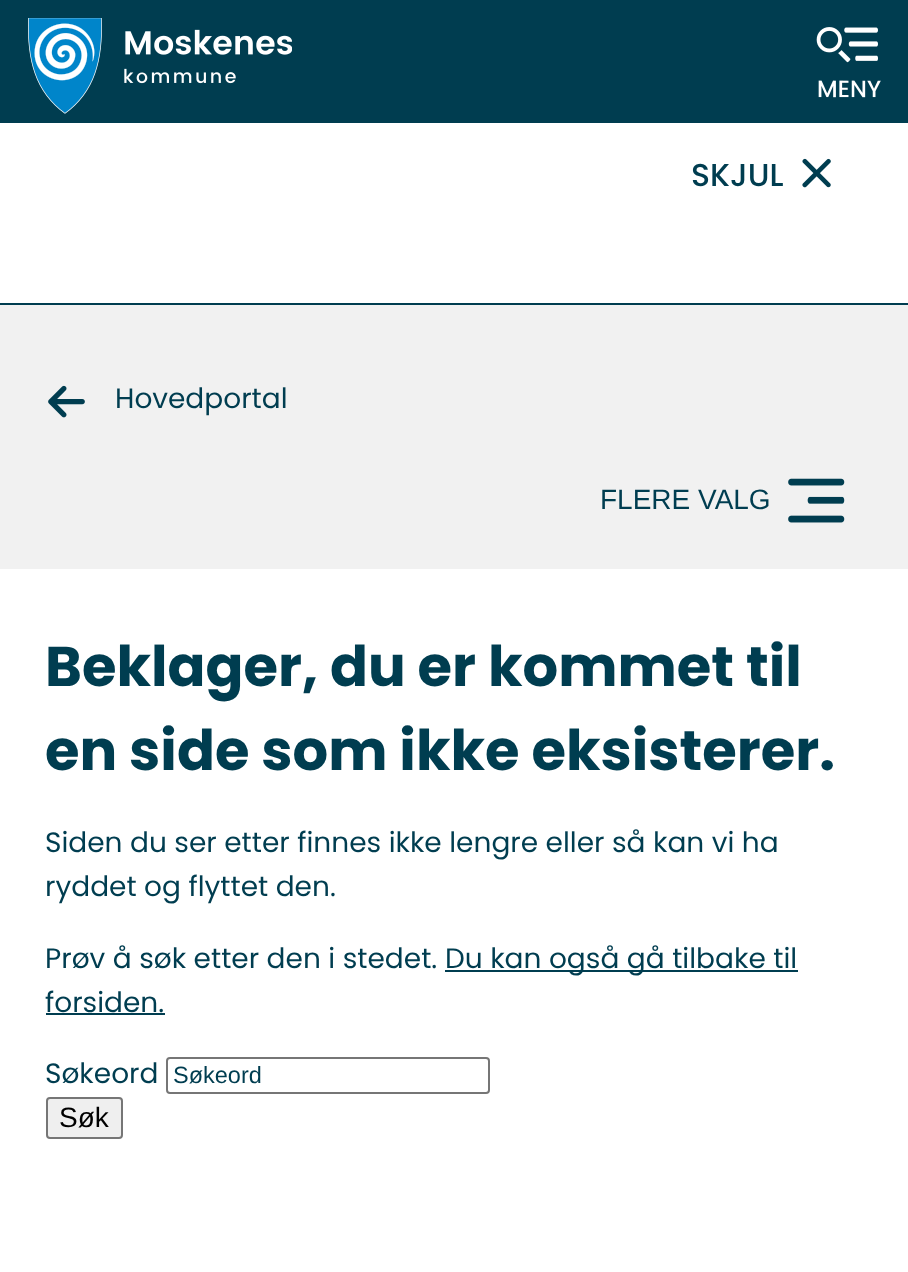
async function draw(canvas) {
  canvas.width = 908
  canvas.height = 1272
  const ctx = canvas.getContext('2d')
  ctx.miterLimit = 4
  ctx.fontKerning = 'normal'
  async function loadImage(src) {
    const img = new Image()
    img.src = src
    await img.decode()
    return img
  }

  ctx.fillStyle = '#fff'
  ctx.fillRect(0, 0, 908, 1272)
  ctx.fillStyle = '#003d50'
  ctx.fillRect(0, 0, 908, 123)
  ctx.drawImage(await loadImage('image0.png'), 28, 18, 264, 96)
  ctx.drawImage(await loadImage('image1.png'), 816, 27, 65, 71)
  ctx.fillRect(0, 303, 908, 2)
  ctx.font = '500 31.5px Poppins'
  ctx.fillText('SKJUL', 691, 186)
  ctx.drawImage(await loadImage('image2.png'), 802, 158, 29, 30)
  ctx.fillStyle = '#f1f1f1'
  ctx.fillRect(0, 305, 908, 264)
  ctx.drawImage(await loadImage('image3.png'), 48, 385, 37, 33)
  ctx.font = '28px Poppins'
  ctx.fillStyle = '#003d50'
  ctx.fillText('Hovedportal', 115, 408)
  ctx.font = '28px Liberation Sans'
  ctx.fillText('FLERE VALG', 600, 509)
  ctx.drawImage(await loadImage('image4.png'), 788, 478, 57, 45)
  ctx.font = 'bold 56px Poppins'
  ctx.fillText('Beklager, du er kommet til', 45, 686)
  ctx.fillText('en side som ikke eksisterer.', 45, 770)
  ctx.font = '28px Poppins'
  ctx.fillText('Siden du ser etter finnes ikke lengre eller så kan vi ha', 45, 852)
  ctx.fillText('ryddet og flyttet den.', 45, 896)
  ctx.fillText('Prøv å søk etter den i stedet.', 45, 968)
  ctx.fillRect(445, 970, 353, 2)
  ctx.fillText('Du kan også gå tilbake til', 445, 968)
  ctx.fillText('forsiden.', 45, 1012)
  ctx.fillRect(46, 1013, 119, 2)
  ctx.fillText('Søkeord', 45, 1083)
  ctx.beginPath()
  ctx.roundRect(167, 1058, 322, 35, 3)
  ctx.strokeStyle = '#767676'
  ctx.lineWidth = 2
  ctx.stroke()
  ctx.font = '23.5px Liberation Sans'
  ctx.fillText('Søkeord', 173, 1083)
  ctx.fillStyle = '#efefef'
  ctx.beginPath()
  ctx.roundRect(47, 1098, 75, 40, 3)
  ctx.fill()
  ctx.stroke()
  ctx.font = '28px Liberation Sans'
  ctx.fillStyle = '#000'
  ctx.fillText('Søk', 59, 1127)
}

draw(document.querySelector('canvas'))
